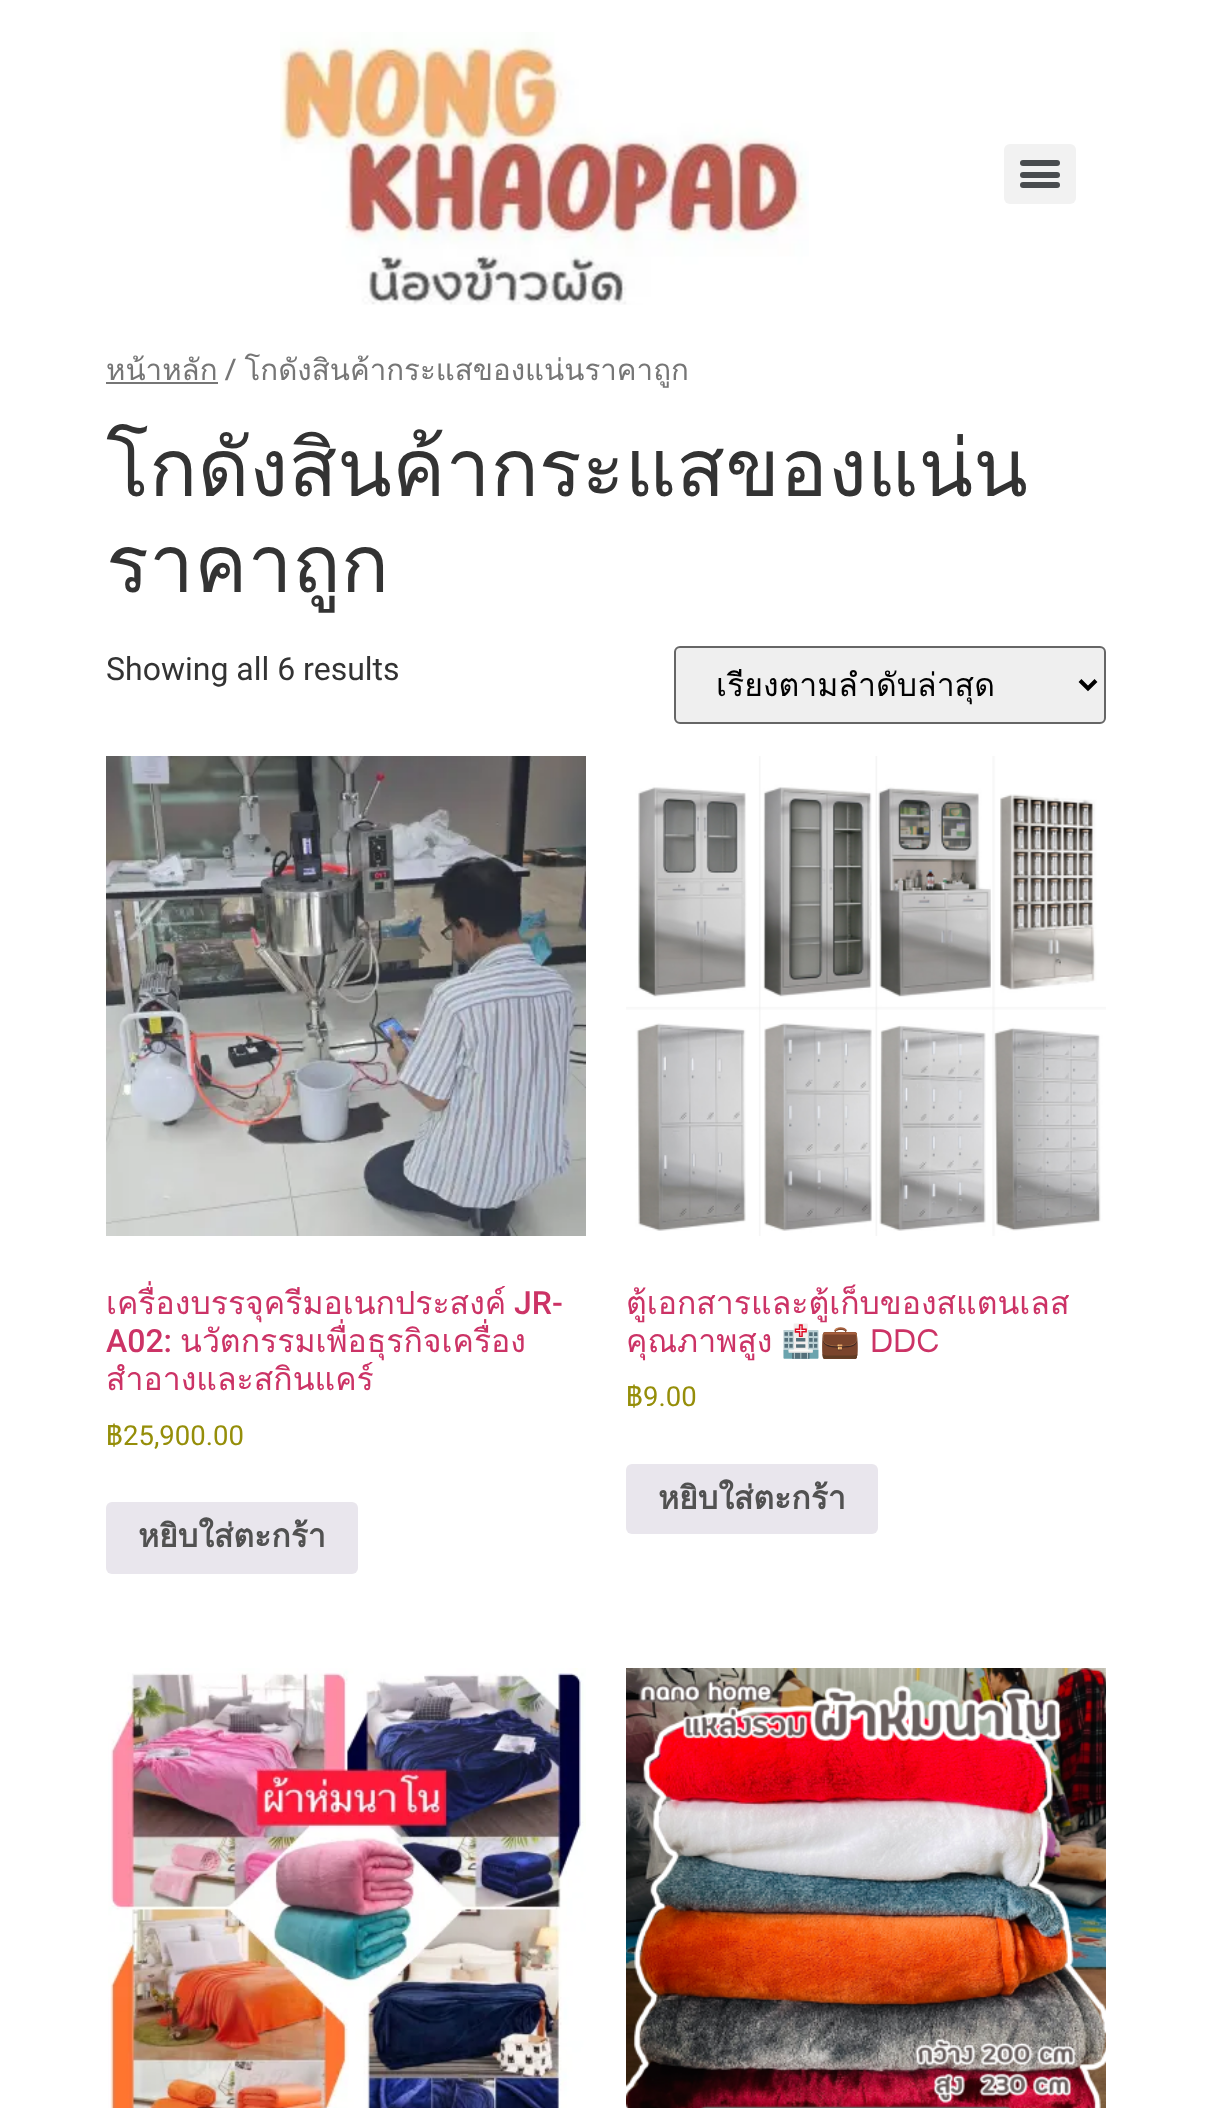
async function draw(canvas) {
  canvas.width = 1212
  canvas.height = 2108
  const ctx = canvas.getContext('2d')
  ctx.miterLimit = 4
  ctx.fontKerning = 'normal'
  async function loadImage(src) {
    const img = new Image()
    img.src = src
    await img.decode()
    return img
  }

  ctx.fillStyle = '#fff'
  ctx.fillRect(0, 0, 1212, 2108)
  ctx.drawImage(await loadImage('image0.png'), 280, 32, 529, 273)
  ctx.fillStyle = '#f2f2f2'
  ctx.beginPath()
  ctx.roundRect(1004, 144, 72, 60, 6)
  ctx.fill()
  ctx.fillStyle = '#494c4f'
  ctx.beginPath()
  ctx.roundRect(1020, 172, 40, 6, 3)
  ctx.fill()
  ctx.beginPath()
  ctx.roundRect(1020, 160, 40, 6, 3)
  ctx.fill()
  ctx.beginPath()
  ctx.roundRect(1020, 182, 40, 6, 3)
  ctx.fill()
  ctx.font = '29.5px Loma'
  ctx.fillStyle = '#767676'
  ctx.fillText('หน้าหลัก', 106, 380)
  ctx.fillRect(106, 382, 112, 2)
  ctx.fillText('/ โกดังสินค้ากระแสของแน่นราคาถูก', 226, 380)
  ctx.font = '80px Loma'
  ctx.fillStyle = '#333'
  ctx.fillText('โกดังสินค้ากระแสของแน่น', 106, 496)
  ctx.fillText('ราคาถูก', 106, 592)
  ctx.font = '32px Roboto'
  ctx.fillText('Showing all 6 results', 106, 680)
  ctx.fillStyle = '#efefef'
  ctx.beginPath()
  ctx.roundRect(675, 647, 430, 76, 5)
  ctx.fill()
  ctx.strokeStyle = '#666'
  ctx.lineWidth = 2
  ctx.stroke()
  ctx.beginPath()
  ctx.moveTo(1080, 680.5)
  ctx.lineTo(1088, 688.5)
  ctx.lineTo(1096, 680.5)
  ctx.strokeStyle = '#000'
  ctx.lineWidth = 4
  ctx.stroke()
  ctx.save()
  ctx.beginPath()
  ctx.rect(716, 664, 324, 42)
  ctx.clip()
  ctx.font = '32px Loma'
  ctx.fillStyle = '#000'
  ctx.fillText('เรียงตามลำดับล่าสุด', 716, 696)
  ctx.restore()
  ctx.drawImage(await loadImage('image1.png'), 106, 756, 480, 480)
  ctx.font = '32px Loma'
  ctx.fillStyle = '#c36'
  ctx.fillText('เครื่องบรรจุครีมอเนกประสงค์', 106, 1314)
  ctx.font = '500 32px Roboto'
  ctx.fillText('JR-', 514, 1314)
  ctx.fillText('A02:', 106, 1352)
  ctx.font = '32px Loma'
  ctx.fillText('นวัตกรรมเพื่อธุรกิจเครื่อง', 180, 1352)
  ctx.fillText('สำอางและสกินแคร์', 106, 1390)
  ctx.font = '27.5px Loma'
  ctx.fillStyle = '#958e09'
  ctx.fillText('฿', 106, 1445)
  ctx.font = '27.5px Roboto'
  ctx.fillText('25,900.00', 123, 1445)
  ctx.fillStyle = '#e9e6ed'
  ctx.beginPath()
  ctx.roundRect(106, 1502, 252, 72, 6)
  ctx.fill()
  ctx.font = 'bold 32px Loma'
  ctx.fillStyle = '#515151'
  ctx.fillText('หยิบใส่ตะกร้า', 138, 1547)
  ctx.drawImage(await loadImage('image2.png'), 626, 756, 480, 480)
  ctx.font = '32px Loma'
  ctx.fillStyle = '#c36'
  ctx.fillText('ตู้เอกสารและตู้เก็บของสแตนเลส', 626, 1314)
  ctx.fillText('คุณภาพสูง', 626, 1352)
  ctx.font = '32px Noto Color Emoji'
  ctx.fillText('🏥💼', 781, 1352)
  ctx.font = '32px Loma'
  ctx.fillText('DDC', 870, 1352)
  ctx.font = '27.5px Loma'
  ctx.fillStyle = '#958e09'
  ctx.fillText('฿', 626, 1406)
  ctx.font = '27.5px Roboto'
  ctx.fillText('9.00', 643, 1406)
  ctx.fillStyle = '#e9e6ed'
  ctx.beginPath()
  ctx.roundRect(626, 1464, 252, 70, 6)
  ctx.fill()
  ctx.font = 'bold 32px Loma'
  ctx.fillStyle = '#515151'
  ctx.fillText('หยิบใส่ตะกร้า', 658, 1509)
  ctx.drawImage(await loadImage('image3.png'), 108, 1668, 478, 440)
  ctx.drawImage(await loadImage('image4.png'), 626, 1668, 480, 440)
}

draw(document.querySelector('canvas'))
